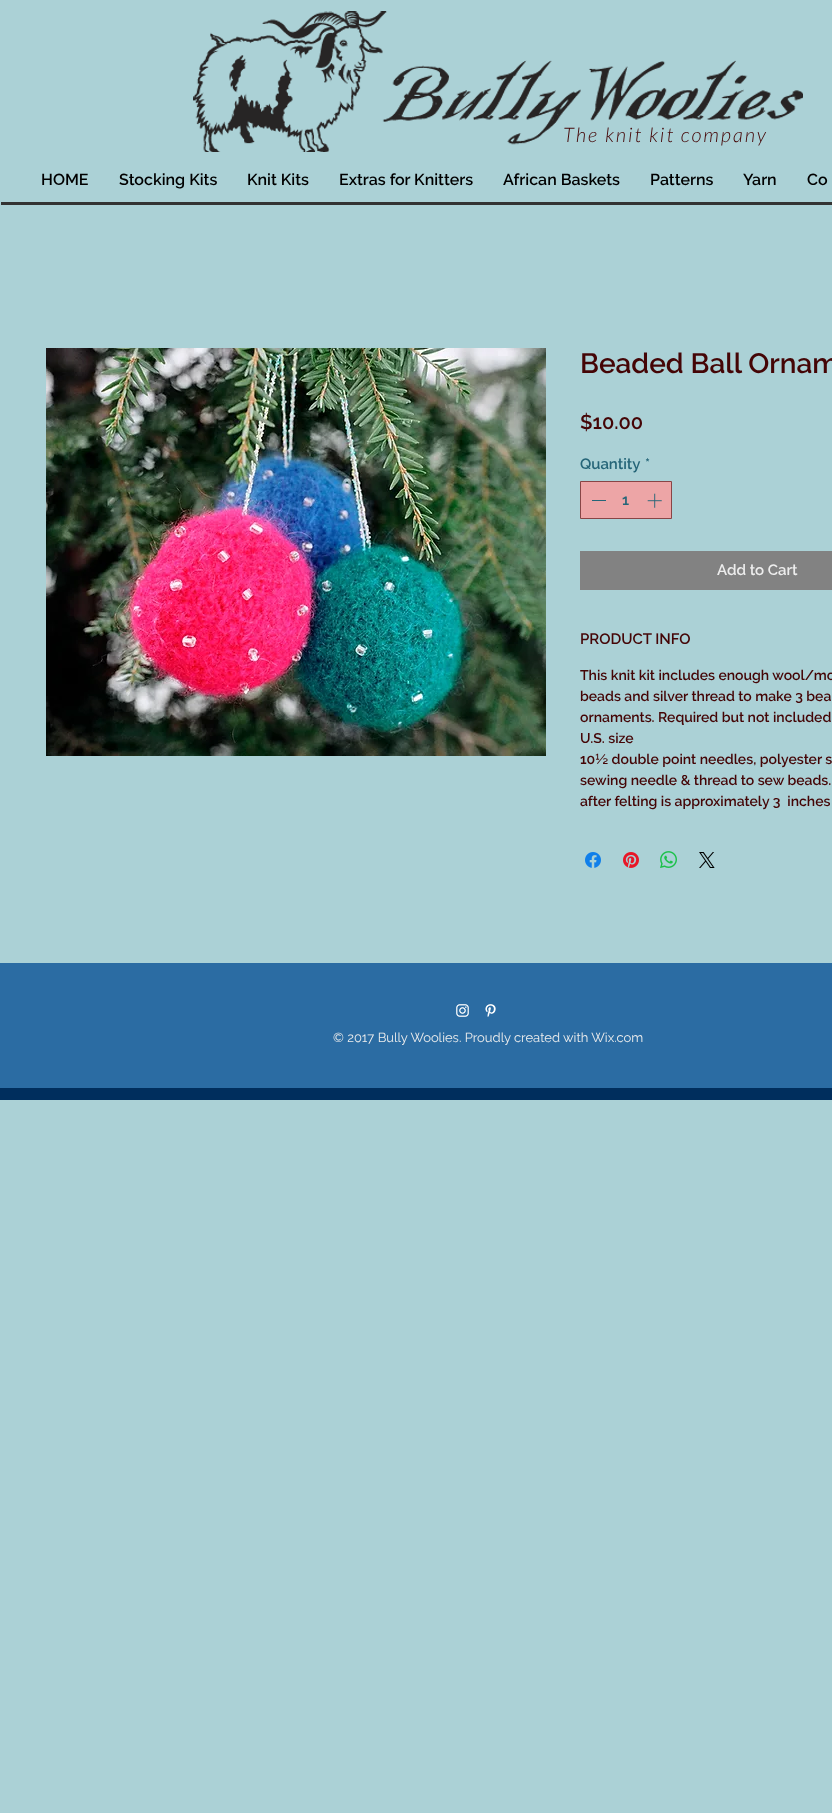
async function draw(canvas) {
  canvas.width = 832
  canvas.height = 1813
  const ctx = canvas.getContext('2d')
  ctx.miterLimit = 4
  ctx.fontKerning = 'normal'
  async function loadImage(src) {
    const img = new Image()
    img.src = src
    await img.decode()
    return img
  }

  ctx.fillStyle = '#abd1d6'
  ctx.fillRect(0, 0, 832, 1813)
  ctx.drawImage(await loadImage('image0.png'), 193, 11, 610, 141)
  ctx.letterSpacing = '2px'
  ctx.font = 'italic 300 20px Lato'
  ctx.fillStyle = '#440506'
  ctx.fillText('The knit kit company', 563, 142)
  ctx.letterSpacing = '0px'
  ctx.font = '600 16px Raleway'
  ctx.fillStyle = '#000'
  ctx.fillText('HOME', 41, 185)
  ctx.fillText('Stocking Kits', 119, 185)
  ctx.fillText('Knit Kits', 247, 185)
  ctx.fillText('Extras for Knitters', 339, 185)
  ctx.fillText('African Baskets', 503, 185)
  ctx.fillText('Patterns', 650, 185)
  ctx.fillText('Yarn', 743, 185)
  ctx.fillText('Co', 807, 185)
  ctx.fillStyle = '#333'
  ctx.fillRect(1, 202, 831, 3)
  ctx.drawImage(await loadImage('image1.png'), 46, 348, 500, 408)
  ctx.font = '600 28px Raleway'
  ctx.fillStyle = '#440506'
  ctx.fillText('Beaded Ball Ornam', 580, 373)
  ctx.font = '600 20px Raleway'
  ctx.fillText('$10.00', 580, 429)
  ctx.font = '600 15px Raleway'
  ctx.fillStyle = '#256578'
  ctx.fillText('Quantity', 580, 469)
  ctx.fillText('*', 645, 469)
  ctx.fillStyle = '#eda5a6'
  ctx.beginPath()
  ctx.rect(580.5, 481.5, 91, 37)
  ctx.fill()
  ctx.strokeStyle = '#884546'
  ctx.stroke()
  ctx.fillStyle = '#256578'
  ctx.fillRect(592, 500, 14, 1)
  ctx.fillText('1', 622, 505)
  ctx.drawImage(await loadImage('image2.png'), 647, 493, 15, 15)
  ctx.fillStyle = '#828282'
  ctx.fillRect(580, 551, 252, 39)
  ctx.fillStyle = '#ededed'
  ctx.fillText('Add to Cart', 717, 575)
  ctx.fillStyle = '#440506'
  ctx.fillText('PRODUCT INFO', 580, 644)
  ctx.font = '600 14px Raleway'
  ctx.fillText('This knit kit includes enough wool/mo', 580, 680)
  ctx.fillText('beads and silver thread to make 3 bea', 580, 701)
  ctx.fillText('ornaments. Required but not included', 580, 722)
  ctx.fillText('U.S. size', 580, 743)
  ctx.fillText('10½ double point needles, polyester s', 580, 764)
  ctx.fillText('sewing needle & thread to sew beads.', 580, 785)
  ctx.fillText('after felting is approximately 3  inches', 580, 806)
  ctx.drawImage(await loadImage('image3.png'), 585, 852, 16, 16)
  ctx.drawImage(await loadImage('image4.png'), 623, 852, 16, 16)
  ctx.drawImage(await loadImage('image5.png'), 660, 851, 17, 17)
  ctx.drawImage(await loadImage('image6.png'), 699, 852, 16, 16)
  ctx.fillStyle = '#2b6ca3'
  ctx.fillRect(0, 963, 832, 125)
  ctx.fillStyle = '#002e5d'
  ctx.fillRect(0, 1088, 832, 12)
  ctx.drawImage(await loadImage('image7.png'), 456, 1004, 13, 13)
  ctx.drawImage(await loadImage('image8.png'), 485, 1004, 11, 13)
  ctx.font = '13px Raleway'
  ctx.fillStyle = '#ededed'
  ctx.fillText('© 2017 Bully Woolies. Proudly created with Wix.com', 333, 1042)
}

draw(document.querySelector('canvas'))
